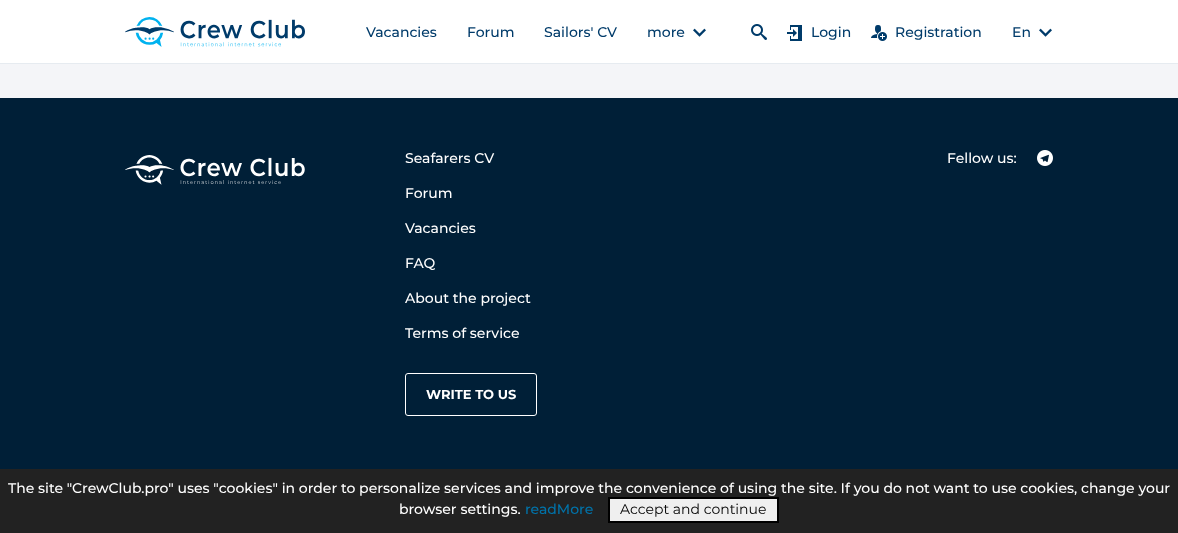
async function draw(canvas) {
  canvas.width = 1178
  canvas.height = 533
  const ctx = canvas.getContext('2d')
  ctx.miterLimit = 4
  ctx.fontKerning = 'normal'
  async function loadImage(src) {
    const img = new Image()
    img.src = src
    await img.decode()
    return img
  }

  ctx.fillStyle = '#f4f5f8'
  ctx.fillRect(0, 0, 1178, 533)
  ctx.fillStyle = '#fff'
  ctx.fillRect(0, 0, 1178, 63)
  ctx.fillStyle = '#e6ebf0'
  ctx.fillRect(0, 63, 1178, 1)
  ctx.drawImage(await loadImage('image0.png'), 125, 17, 180, 30)
  ctx.font = '500 14px Montserrat'
  ctx.fillStyle = '#003b6a'
  ctx.fillText('Vacancies', 366, 37)
  ctx.fillText('Forum', 467, 37)
  ctx.fillText('Sailors\' CV', 544, 37)
  ctx.fillText('more', 647, 37)
  ctx.drawImage(await loadImage('image1.png'), 693, 28, 13, 9)
  ctx.drawImage(await loadImage('image2.png'), 751, 24, 16, 16)
  ctx.drawImage(await loadImage('image3.png'), 787, 25, 15, 16)
  ctx.fillText('Login', 811, 37)
  ctx.drawImage(await loadImage('image4.png'), 871, 25, 16, 16)
  ctx.fillText('Registration', 895, 37)
  ctx.fillText('En', 1012, 37)
  ctx.drawImage(await loadImage('image1.png'), 1039, 28, 13, 9)
  ctx.fillStyle = '#001f37'
  ctx.fillRect(0, 98, 1178, 371)
  ctx.drawImage(await loadImage('image5.png'), 125, 155, 180, 30)
  ctx.fillStyle = '#fff'
  ctx.fillText('Seafarers CV', 405, 163)
  ctx.fillText('Forum', 405, 198)
  ctx.fillText('Vacancies', 405, 233)
  ctx.fillText('FAQ', 405, 268)
  ctx.fillText('About the project', 405, 303)
  ctx.fillText('Terms of service', 405, 338)
  ctx.beginPath()
  ctx.roundRect(405.5, 373.5, 131, 42, 2.5)
  ctx.strokeStyle = '#fff'
  ctx.stroke()
  ctx.font = 'bold 13px Montserrat'
  ctx.fillText('WRITE TO US', 426, 399)
  ctx.font = '500 14px Montserrat'
  ctx.fillText('Fellow us:', 947, 163)
  ctx.drawImage(await loadImage('image6.png'), 1037, 150, 16, 16)
  ctx.fillStyle = '#222'
  ctx.fillRect(0, 469, 1178, 64)
  ctx.fillStyle = '#fff'
  ctx.fillText('The site "CrewClub.pro" uses "cookies" in order to personalize services and improve the convenience of using the site. If you do not want to use cookies, change your', 8, 493)
  ctx.fillText('browser settings.', 399, 514)
  ctx.fillStyle = '#0073aa'
  ctx.fillText('readMore', 525, 514)
  ctx.fillStyle = '#efefef'
  ctx.beginPath()
  ctx.rect(609, 498, 169, 24)
  ctx.fill()
  ctx.strokeStyle = '#000'
  ctx.lineWidth = 2
  ctx.stroke()
  ctx.font = '14px Montserrat'
  ctx.fillStyle = '#000'
  ctx.fillText('Accept and continue', 620, 514)
}

draw(document.querySelector('canvas'))
